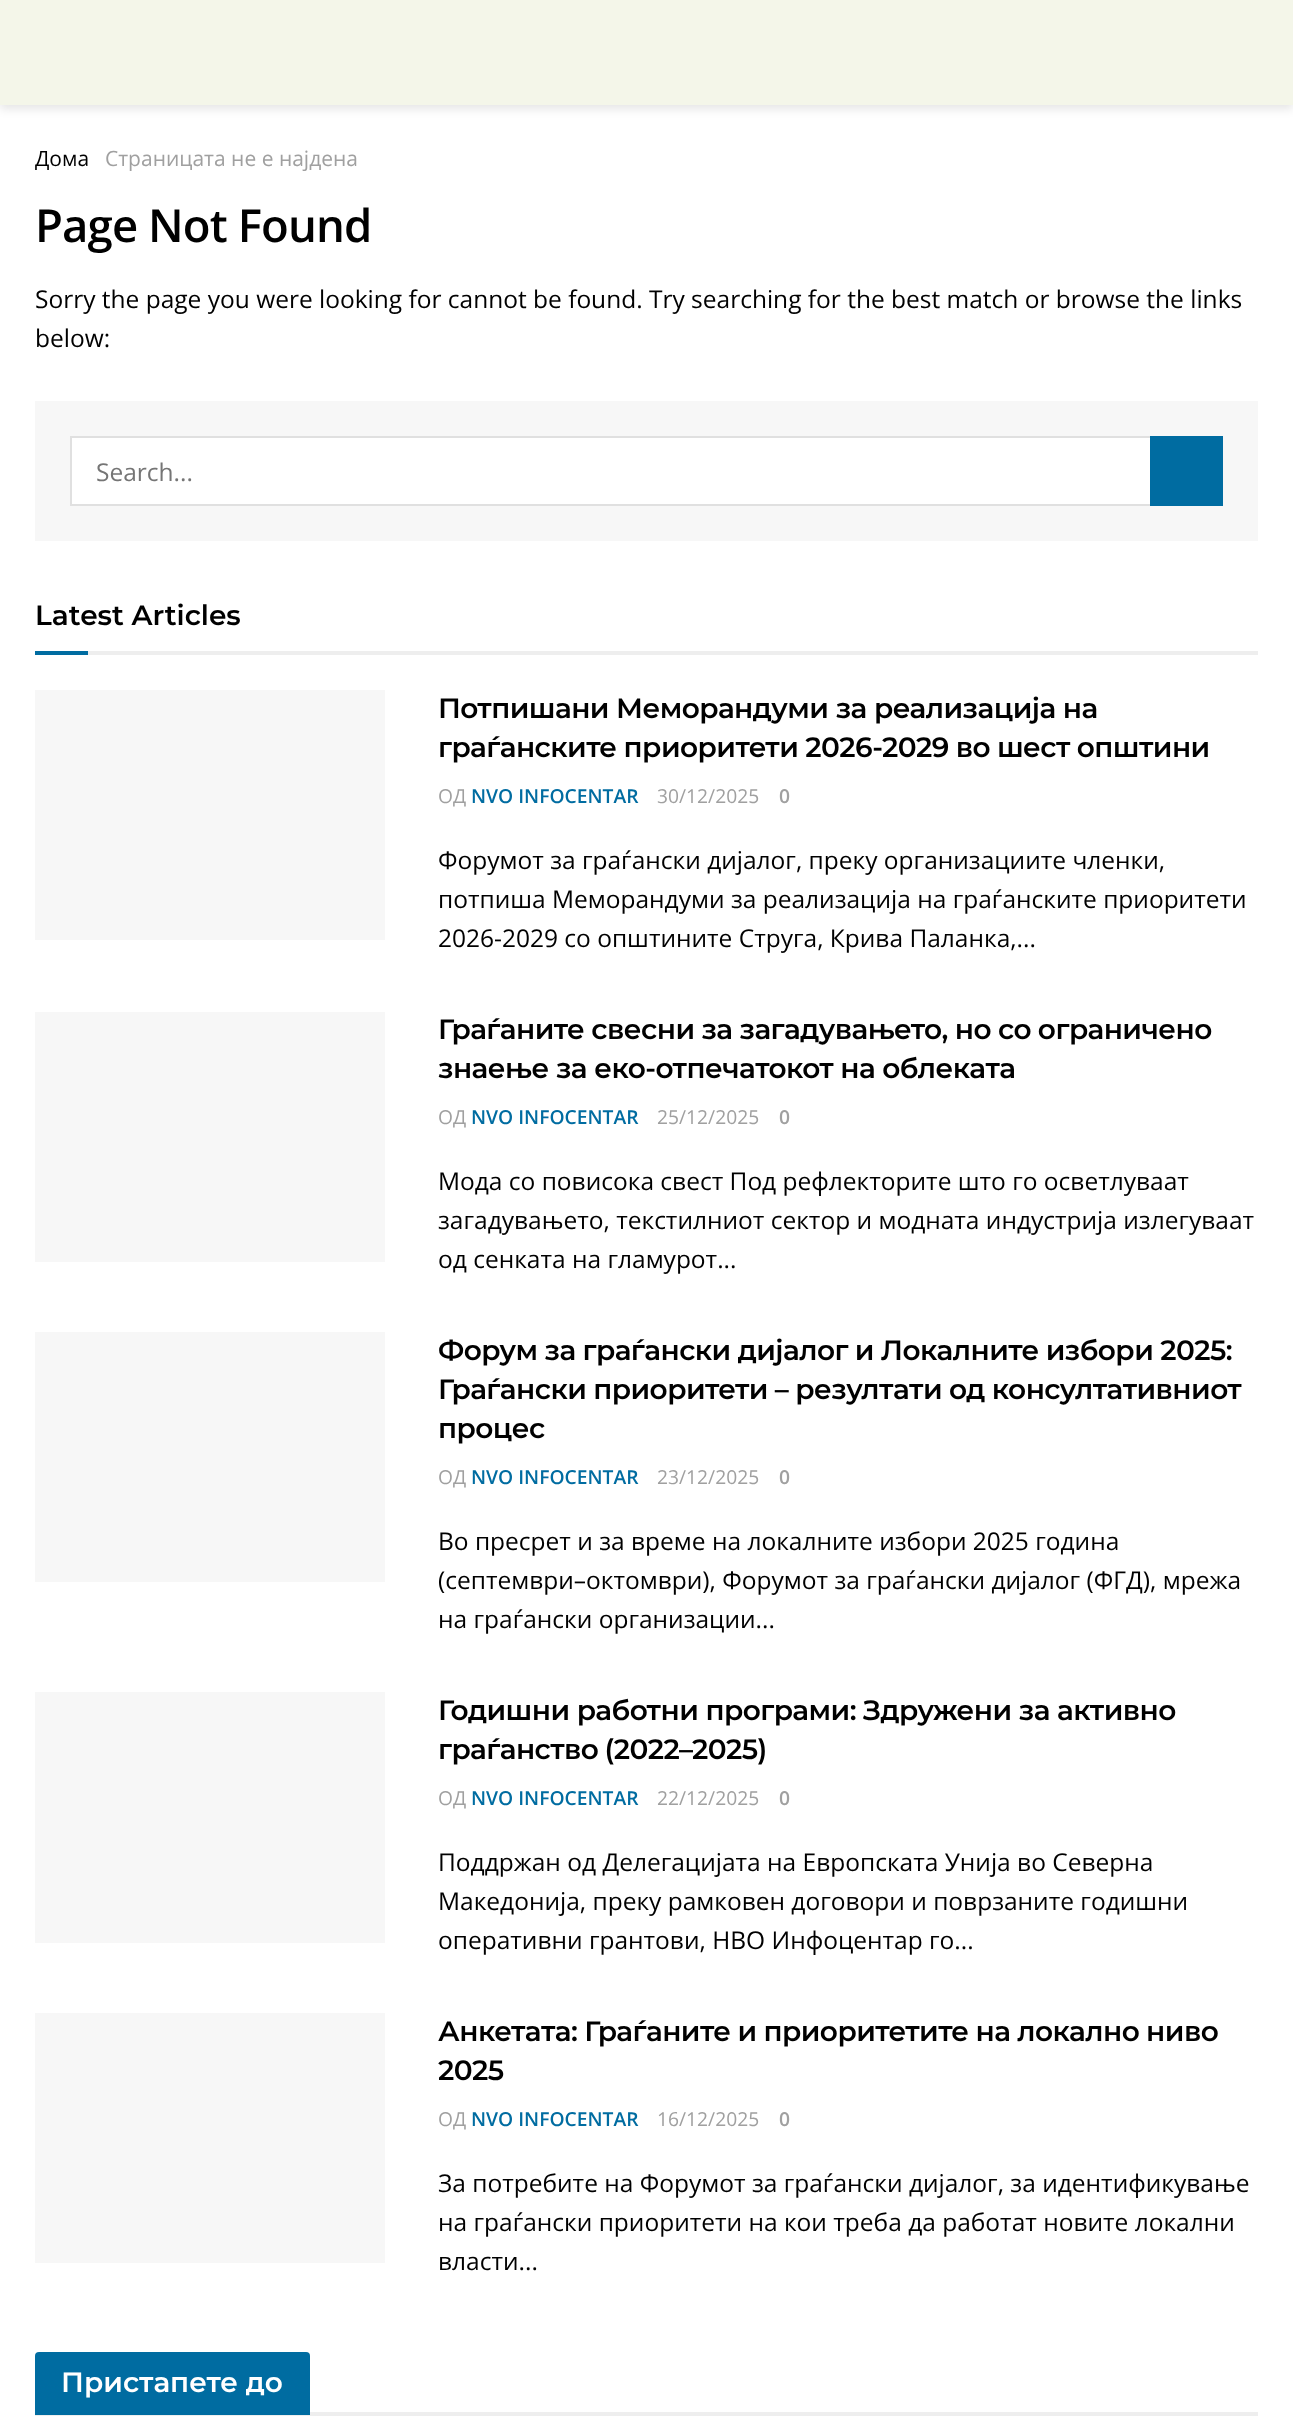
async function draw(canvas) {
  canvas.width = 1293
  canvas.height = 2417
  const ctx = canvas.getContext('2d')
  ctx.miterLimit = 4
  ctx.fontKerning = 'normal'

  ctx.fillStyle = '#fff'
  ctx.fillRect(0, 0, 1293, 2417)
  ctx.fillStyle = '#0000001a'
  ctx.filter = 'blur(5px)'
  ctx.beginPath()
  ctx.rect(0, 4, 1293, 105)
  ctx.fill()
  ctx.filter = 'none'
  ctx.fillStyle = '#f4f6e9'
  ctx.fillRect(0, 0, 1293, 105)
  ctx.font = '21px Open Sans'
  ctx.fillStyle = '#000'
  ctx.fillText('Дома', 35, 166)
  ctx.fillStyle = '#a0a0a0'
  ctx.fillText('Страницата не е најдена', 105, 166)
  ctx.letterSpacing = '-0.9px'
  ctx.font = '600 45.5px Open Sans'
  ctx.fillStyle = '#000'
  ctx.fillText('Page Not Found', 35, 242)
  ctx.letterSpacing = '0px'
  ctx.font = '24.5px Open Sans'
  ctx.fillText('Sorry the page you were looking for cannot be found. Try searching for the best match or browse the links', 35, 308)
  ctx.fillText('below:', 35, 347)
  ctx.fillStyle = '#f7f7f7'
  ctx.fillRect(35, 401, 1223, 140)
  ctx.fillStyle = '#fff'
  ctx.fillRect(72, 438, 1078, 66)
  ctx.strokeStyle = '#e0e0e0'
  ctx.lineWidth = 2
  ctx.strokeRect(71, 437, 1151, 68)
  ctx.fillStyle = '#757575'
  ctx.fillText('Search...', 96, 481)
  ctx.fillStyle = '#006ca1'
  ctx.fillRect(1150, 436, 73, 70)
  ctx.fillStyle = '#eee'
  ctx.fillRect(88, 651, 1170, 4)
  ctx.font = '600 28px Montserrat'
  ctx.fillStyle = '#000'
  ctx.fillText('Latest Articles', 35, 625)
  ctx.fillStyle = '#006ca1'
  ctx.fillRect(35, 651, 53, 4)
  ctx.fillStyle = '#f7f7f7'
  ctx.fillRect(35, 690, 350, 250)
  ctx.letterSpacing = '-0.55px'
  ctx.fillStyle = '#000'
  ctx.fillText('Потпишани Меморандуми за реализација на', 438, 718)
  ctx.wordSpacing = '-0.25px'
  ctx.fillText('граѓанските приоритети 2026-2029 во шест општини', 438, 757)
  ctx.letterSpacing = '0px'
  ctx.wordSpacing = '0px'
  ctx.font = '19.25px Open Sans'
  ctx.fillStyle = '#a0a0a0'
  ctx.fillText('ОД', 438, 803)
  ctx.font = '600 19.25px Open Sans'
  ctx.fillStyle = '#006ca1'
  ctx.fillText('NVO INFOCENTAR', 471, 803)
  ctx.font = '19.25px Open Sans'
  ctx.fillStyle = '#a0a0a0'
  ctx.fillText('30/12/2025', 657, 803)
  ctx.font = '600 19.25px Open Sans'
  ctx.fillText('0', 779, 803)
  ctx.font = '24.5px Open Sans'
  ctx.fillStyle = '#000'
  ctx.fillText('Форумот за граѓански дијалог, преку организациите членки,', 438, 869)
  ctx.fillText('потпиша Меморандуми за реализација на граѓанските приоритети', 438, 908)
  ctx.fillText('2026-2029 со општините Струга, Крива Паланка,...', 438, 947)
  ctx.fillStyle = '#f7f7f7'
  ctx.fillRect(35, 1012, 350, 250)
  ctx.letterSpacing = '-0.55px'
  ctx.wordSpacing = '-0.25px'
  ctx.font = '600 28px Montserrat'
  ctx.fillStyle = '#000'
  ctx.fillText('Граѓаните свесни за загадувањето, но со ограничено', 438, 1039)
  ctx.wordSpacing = '0px'
  ctx.fillText('знаење за еко-отпечатокот на облеката', 438, 1078)
  ctx.letterSpacing = '0px'
  ctx.font = '19.25px Open Sans'
  ctx.fillStyle = '#a0a0a0'
  ctx.fillText('ОД', 438, 1124)
  ctx.font = '600 19.25px Open Sans'
  ctx.fillStyle = '#006ca1'
  ctx.fillText('NVO INFOCENTAR', 471, 1124)
  ctx.font = '19.25px Open Sans'
  ctx.fillStyle = '#a0a0a0'
  ctx.fillText('25/12/2025', 657, 1124)
  ctx.font = '600 19.25px Open Sans'
  ctx.fillText('0', 779, 1124)
  ctx.font = '24.5px Open Sans'
  ctx.fillStyle = '#000'
  ctx.fillText('Мода со повисока свест Под рефлекторите што го осветлуваат', 438, 1190)
  ctx.fillText('загадувањето, текстилниот сектор и модната индустрија излегуваат', 438, 1229)
  ctx.fillText('од сенката на гламурот...', 438, 1268)
  ctx.fillStyle = '#f7f7f7'
  ctx.fillRect(35, 1332, 350, 250)
  ctx.letterSpacing = '-0.55px'
  ctx.wordSpacing = '-0.25px'
  ctx.font = '600 28px Montserrat'
  ctx.fillStyle = '#000'
  ctx.fillText('Форум за граѓански дијалог и Локалните избори 2025:', 438, 1360)
  ctx.fillText('Граѓански приоритети – резултати од консултативниот', 438, 1399)
  ctx.wordSpacing = '0px'
  ctx.fillText('процес', 438, 1438)
  ctx.letterSpacing = '0px'
  ctx.font = '19.25px Open Sans'
  ctx.fillStyle = '#a0a0a0'
  ctx.fillText('ОД', 438, 1484)
  ctx.font = '600 19.25px Open Sans'
  ctx.fillStyle = '#006ca1'
  ctx.fillText('NVO INFOCENTAR', 471, 1484)
  ctx.font = '19.25px Open Sans'
  ctx.fillStyle = '#a0a0a0'
  ctx.fillText('23/12/2025', 657, 1484)
  ctx.font = '600 19.25px Open Sans'
  ctx.fillText('0', 779, 1484)
  ctx.font = '24.5px Open Sans'
  ctx.fillStyle = '#000'
  ctx.fillText('Во пресрет и за време на локалните избори 2025 година', 438, 1550)
  ctx.fillText('(септември–октомври), Форумот за граѓански дијалог (ФГД), мрежа', 438, 1589)
  ctx.fillText('на граѓански организации...', 438, 1628)
  ctx.fillStyle = '#f7f7f7'
  ctx.fillRect(35, 1692, 350, 251)
  ctx.letterSpacing = '-0.55px'
  ctx.font = '600 28px Montserrat'
  ctx.fillStyle = '#000'
  ctx.fillText('Годишни работни програми: Здружени за активно', 438, 1720)
  ctx.wordSpacing = '-1px'
  ctx.fillText('граѓанство (2022–2025)', 438, 1759)
  ctx.letterSpacing = '0px'
  ctx.wordSpacing = '0px'
  ctx.font = '19.25px Open Sans'
  ctx.fillStyle = '#a0a0a0'
  ctx.fillText('ОД', 438, 1805)
  ctx.font = '600 19.25px Open Sans'
  ctx.fillStyle = '#006ca1'
  ctx.fillText('NVO INFOCENTAR', 471, 1805)
  ctx.font = '19.25px Open Sans'
  ctx.fillStyle = '#a0a0a0'
  ctx.fillText('22/12/2025', 657, 1805)
  ctx.font = '600 19.25px Open Sans'
  ctx.fillText('0', 779, 1805)
  ctx.font = '24.5px Open Sans'
  ctx.fillStyle = '#000'
  ctx.fillText('Поддржан од Делегацијата на Европската Унија во Северна', 438, 1871)
  ctx.fillText('Македонија, преку рамковен договори и поврзаните годишни', 438, 1910)
  ctx.fillText('оперативни грантови, НВО Инфоцентар го...', 438, 1949)
  ctx.fillStyle = '#f7f7f7'
  ctx.fillRect(35, 2013, 350, 250)
  ctx.letterSpacing = '-0.55px'
  ctx.wordSpacing = '-0.25px'
  ctx.font = '600 28px Montserrat'
  ctx.fillStyle = '#000'
  ctx.fillText('Анкетата: Граѓаните и приоритетите на локално ниво', 438, 2041)
  ctx.wordSpacing = '0px'
  ctx.fillText('2025', 438, 2080)
  ctx.letterSpacing = '0px'
  ctx.font = '19.25px Open Sans'
  ctx.fillStyle = '#a0a0a0'
  ctx.fillText('ОД', 438, 2126)
  ctx.font = '600 19.25px Open Sans'
  ctx.fillStyle = '#006ca1'
  ctx.fillText('NVO INFOCENTAR', 471, 2126)
  ctx.font = '19.25px Open Sans'
  ctx.fillStyle = '#a0a0a0'
  ctx.fillText('16/12/2025', 657, 2126)
  ctx.font = '600 19.25px Open Sans'
  ctx.fillText('0', 779, 2126)
  ctx.font = '24.5px Open Sans'
  ctx.fillStyle = '#000'
  ctx.fillText('За потребите на Форумот за граѓански дијалог, за идентификување', 438, 2192)
  ctx.fillText('на граѓански приоритети на кои треба да работат новите локални', 438, 2231)
  ctx.fillText('власти...', 438, 2270)
  ctx.fillStyle = '#eee'
  ctx.fillRect(35, 2412, 1223, 4)
  ctx.fillStyle = '#006ca1'
  ctx.beginPath()
  ctx.roundRect(35, 2352, 275, 63, [4, 4, 0, 0])
  ctx.fill()
  ctx.font = '600 28px Montserrat'
  ctx.fillStyle = '#fff'
  ctx.fillText('Пристапете до', 61, 2392)
}

draw(document.querySelector('canvas'))
